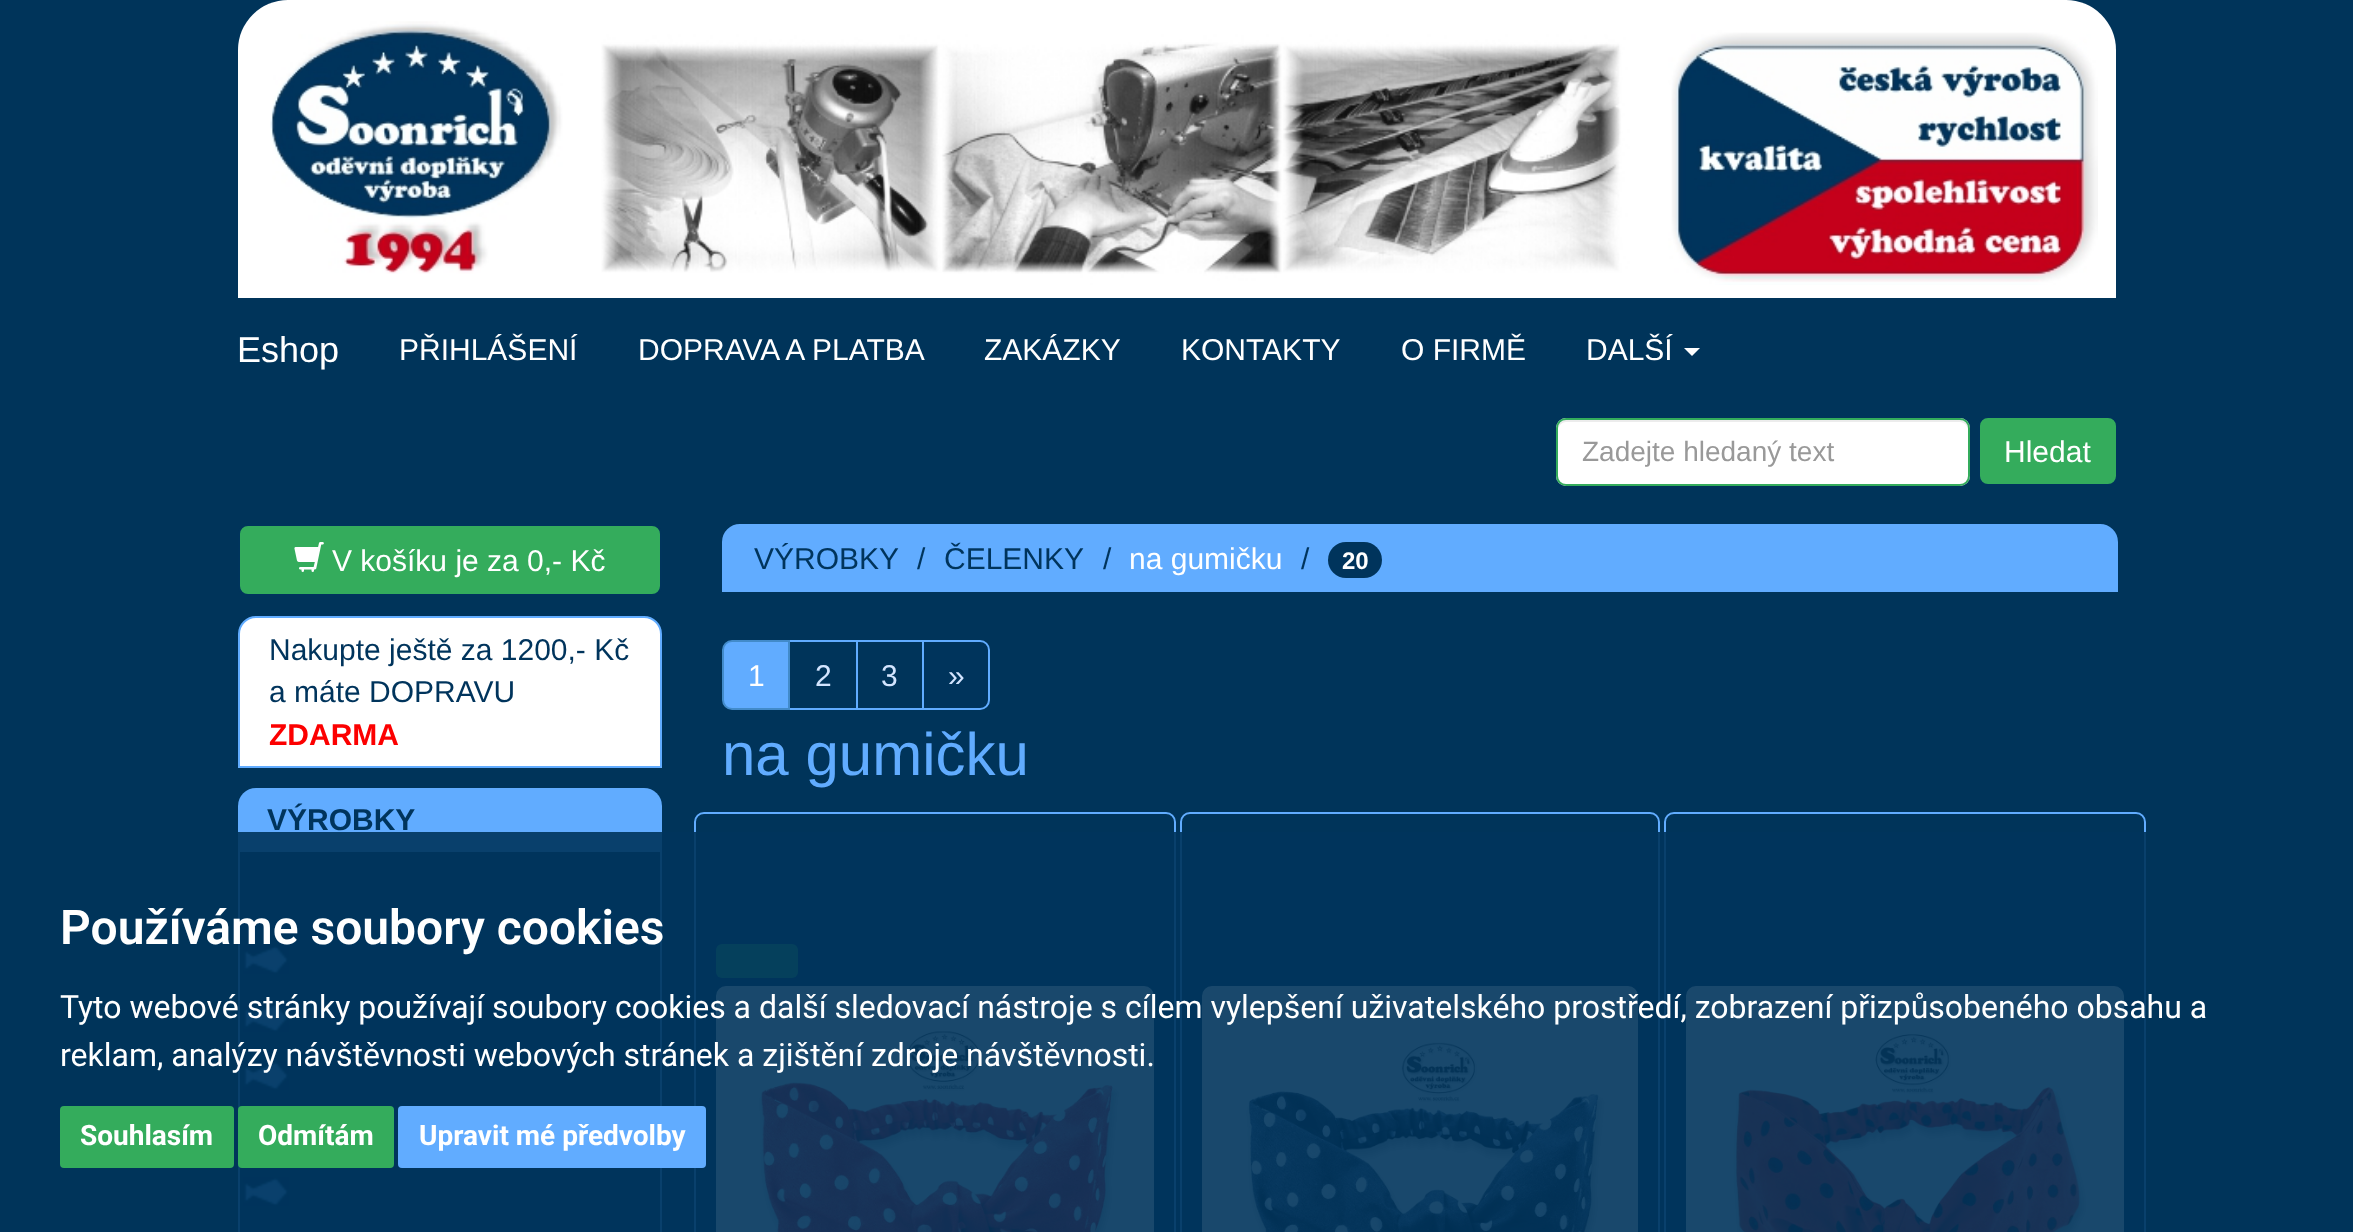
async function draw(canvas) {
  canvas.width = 2353
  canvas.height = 1232
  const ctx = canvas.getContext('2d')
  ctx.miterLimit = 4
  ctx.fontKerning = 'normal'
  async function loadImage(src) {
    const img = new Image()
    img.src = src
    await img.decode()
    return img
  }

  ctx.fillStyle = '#00345a'
  ctx.fillRect(0, 0, 2353, 1232)
  ctx.fillStyle = '#fff'
  ctx.beginPath()
  ctx.roundRect(238, 0, 1878, 298, [50, 50, 0, 0])
  ctx.fill()
  ctx.drawImage(await loadImage('image0.png'), 270, 21, 1828, 264)
  ctx.font = '36px Liberation Sans'
  ctx.fillText('Eshop', 237, 362)
  ctx.font = '30px Liberation Sans'
  ctx.fillText('PŘIHLÁŠENÍ', 399, 360)
  ctx.fillText('DOPRAVA A PLATBA', 638, 360)
  ctx.fillText('ZAKÁZKY', 984, 360)
  ctx.fillText('KONTAKTY', 1181, 360)
  ctx.fillText('O FIRMĚ', 1401, 360)
  ctx.fillText('DALŠÍ', 1586, 360)
  ctx.beginPath()
  ctx.moveTo(1684, 348)
  ctx.lineTo(1700, 348)
  ctx.lineTo(1692, 356)
  ctx.closePath()
  ctx.fill()
  ctx.beginPath()
  ctx.roundRect(1556, 418, 414, 68, 10)
  ctx.fill()
  ctx.fillStyle = '#ececec'
  ctx.beginPath()
  ctx.moveTo(1566, 422)
  ctx.lineTo(1960, 422)
  ctx.bezierCurveTo(1964, 422, 1968, 426, 1968, 430)
  ctx.lineTo(1968, 428)
  ctx.bezierCurveTo(1968, 424, 1964, 420, 1960, 420)
  ctx.lineTo(1566, 420)
  ctx.bezierCurveTo(1562, 420, 1558, 424, 1558, 428)
  ctx.lineTo(1558, 430)
  ctx.bezierCurveTo(1558, 426, 1562, 422, 1566, 422)
  ctx.closePath()
  ctx.fill()
  ctx.beginPath()
  ctx.roundRect(1557, 419, 412, 66, 9)
  ctx.strokeStyle = '#34ac5c'
  ctx.lineWidth = 2
  ctx.stroke()
  ctx.font = '28px Liberation Sans'
  ctx.fillStyle = '#999'
  ctx.fillText('Zadejte hledaný text', 1582, 461)
  ctx.fillStyle = '#34ac5c'
  ctx.beginPath()
  ctx.roundRect(1979, 417, 138, 68, 9)
  ctx.fill()
  ctx.strokeStyle = '#00345c'
  ctx.stroke()
  ctx.font = '30px Liberation Sans'
  ctx.fillStyle = '#fff'
  ctx.fillText('Hledat', 2004, 462)
  ctx.fillStyle = '#34ac5c'
  ctx.beginPath()
  ctx.roundRect(239, 525, 422, 70, 9)
  ctx.fill()
  ctx.stroke()
  ctx.drawImage(await loadImage('image1.png'), 294, 542, 30, 30)
  ctx.fillStyle = '#fff'
  ctx.fillText('V košíku je za 0,- Kč', 332, 571)
  ctx.beginPath()
  ctx.roundRect(239, 617, 422, 150, [17, 17, 0, 0])
  ctx.fill()
  ctx.strokeStyle = '#61acff'
  ctx.stroke()
  ctx.fillStyle = '#00345c'
  ctx.fillText('Nakupte ještě za 1200,- Kč', 269, 660)
  ctx.fillText('a máte DOPRAVU', 269, 702)
  ctx.font = 'bold 30px Liberation Sans'
  ctx.fillStyle = '#fc0000'
  ctx.fillText('ZDARMA', 269, 745)
  ctx.fillStyle = '#61acff'
  ctx.beginPath()
  ctx.roundRect(238, 788, 424, 62, [18, 18, 0, 0])
  ctx.fill()
  ctx.fillStyle = '#00345c'
  ctx.fillText('VÝROBKY', 267, 830)
  ctx.strokeRect(239, 851, 422, 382)
  ctx.drawImage(await loadImage('image2.png'), 243, 945, 46, 29)
  ctx.drawImage(await loadImage('image2.png'), 243, 1003, 46, 29)
  ctx.drawImage(await loadImage('image2.png'), 243, 1061, 46, 29)
  ctx.drawImage(await loadImage('image2.png'), 243, 1177, 46, 29)
  ctx.fillStyle = '#61acff'
  ctx.beginPath()
  ctx.roundRect(723, 525, 1394, 66, [17, 17, 0, 0])
  ctx.fill()
  ctx.stroke()
  ctx.font = '30px Liberation Sans'
  ctx.fillStyle = '#00345c'
  ctx.fillText('VÝROBKY', 754, 569)
  ctx.fillText('/', 917, 569)
  ctx.fillText('ČELENKY', 944, 569)
  ctx.fillText('/', 1103, 569)
  ctx.fillStyle = '#fff'
  ctx.fillText('na gumičku', 1129, 569)
  ctx.fillStyle = '#00345c'
  ctx.fillText('/', 1301, 569)
  ctx.beginPath()
  ctx.roundRect(1328, 542, 54, 36, 18)
  ctx.fill()
  ctx.font = 'bold 24px Liberation Sans'
  ctx.fillStyle = '#fff'
  ctx.fillText('20', 1342, 569)
  ctx.strokeRect(789, 641, 68, 68)
  ctx.fillStyle = '#61acff'
  ctx.beginPath()
  ctx.roundRect(723, 641, 66, 68, [9, 0, 0, 9])
  ctx.fill()
  ctx.strokeStyle = '#428bca'
  ctx.stroke()
  ctx.font = '30px Liberation Sans'
  ctx.fillStyle = '#fff'
  ctx.fillText('1', 748, 686)
  ctx.fillStyle = '#d3e5ff'
  ctx.fillText('2', 815, 686)
  ctx.strokeStyle = '#61acff'
  ctx.strokeRect(857, 641, 66, 68)
  ctx.fillText('3', 881, 686)
  ctx.fillStyle = '#00345c'
  ctx.beginPath()
  ctx.roundRect(923, 641, 66, 68, [0, 9, 9, 0])
  ctx.fill()
  ctx.stroke()
  ctx.fillStyle = '#d3e5ff'
  ctx.fillText('»', 948, 686)
  ctx.font = '60px Liberation Sans'
  ctx.fillStyle = '#61acff'
  ctx.fillText('na gumičku', 722, 775)
  ctx.beginPath()
  ctx.moveTo(704, 813)
  ctx.lineTo(1166, 813)
  ctx.bezierCurveTo(1171, 813, 1175, 817, 1175, 822)
  ctx.lineTo(1175, 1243)
  ctx.lineTo(695, 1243)
  ctx.lineTo(695, 822)
  ctx.bezierCurveTo(695, 817, 699, 813, 704, 813)
  ctx.closePath()
  ctx.stroke()
  ctx.fillStyle = '#34ac5c'
  ctx.beginPath()
  ctx.roundRect(716, 944, 82, 34, 6)
  ctx.fill()
  ctx.fillStyle = '#fff'
  ctx.beginPath()
  ctx.moveTo(726, 987)
  ctx.lineTo(1144, 987)
  ctx.bezierCurveTo(1149, 987, 1153, 991, 1153, 996)
  ctx.lineTo(1153, 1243)
  ctx.lineTo(717, 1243)
  ctx.lineTo(717, 996)
  ctx.bezierCurveTo(717, 991, 721, 987, 726, 987)
  ctx.closePath()
  ctx.fill()
  ctx.strokeStyle = '#fff'
  ctx.stroke()
  ctx.drawImage(await loadImage('image3.png'), 758, 1031, 362, 201)
  ctx.beginPath()
  ctx.moveTo(1190, 813)
  ctx.lineTo(1650, 813)
  ctx.bezierCurveTo(1655, 813, 1659, 817, 1659, 822)
  ctx.lineTo(1659, 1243)
  ctx.lineTo(1181, 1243)
  ctx.lineTo(1181, 822)
  ctx.bezierCurveTo(1181, 817, 1185, 813, 1190, 813)
  ctx.closePath()
  ctx.strokeStyle = '#61acff'
  ctx.stroke()
  ctx.beginPath()
  ctx.moveTo(1212, 987)
  ctx.lineTo(1628, 987)
  ctx.bezierCurveTo(1633, 987, 1637, 991, 1637, 996)
  ctx.lineTo(1637, 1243)
  ctx.lineTo(1203, 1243)
  ctx.lineTo(1203, 996)
  ctx.bezierCurveTo(1203, 991, 1207, 987, 1212, 987)
  ctx.closePath()
  ctx.fill()
  ctx.strokeStyle = '#fff'
  ctx.stroke()
  ctx.drawImage(await loadImage('image4.png'), 1245, 1042, 360, 190)
  ctx.beginPath()
  ctx.moveTo(1674, 813)
  ctx.lineTo(2136, 813)
  ctx.bezierCurveTo(2141, 813, 2145, 817, 2145, 822)
  ctx.lineTo(2145, 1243)
  ctx.lineTo(1665, 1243)
  ctx.lineTo(1665, 822)
  ctx.bezierCurveTo(1665, 817, 1669, 813, 1674, 813)
  ctx.closePath()
  ctx.strokeStyle = '#61acff'
  ctx.stroke()
  ctx.beginPath()
  ctx.moveTo(1696, 987)
  ctx.lineTo(2114, 987)
  ctx.bezierCurveTo(2119, 987, 2123, 991, 2123, 996)
  ctx.lineTo(2123, 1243)
  ctx.lineTo(1687, 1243)
  ctx.lineTo(1687, 996)
  ctx.bezierCurveTo(1687, 991, 1691, 987, 1696, 987)
  ctx.closePath()
  ctx.fill()
  ctx.strokeStyle = '#fff'
  ctx.stroke()
  ctx.drawImage(await loadImage('image5.png'), 1732, 1034, 355, 198)
  ctx.fillStyle = '#00345ce6'
  ctx.fillRect(238, 832, 1908, 400)
  ctx.font = '600 48px Roboto'
  ctx.fillStyle = '#fff'
  ctx.fillText('Používáme soubory cookies', 60, 944)
  ctx.font = '32px Roboto'
  ctx.fillText('Tyto webové stránky používají soubory cookies a další sledovací nástroje s cílem vylepšení uživatelského prostředí, zobrazení přizpůsobeného obsahu a', 60, 1018)
  ctx.fillText('reklam, analýzy návštěvnosti webových stránek a zjištění zdroje návštěvnosti.', 60, 1066)
  ctx.fillStyle = '#34ac5c'
  ctx.beginPath()
  ctx.roundRect(60, 1106, 174, 62, 4)
  ctx.fill()
  ctx.font = 'bold 28px Roboto'
  ctx.fillStyle = '#fff'
  ctx.fillText('Souhlasím', 80, 1145)
  ctx.fillStyle = '#34ac5c'
  ctx.beginPath()
  ctx.roundRect(238, 1106, 156, 62, 4)
  ctx.fill()
  ctx.fillStyle = '#fff'
  ctx.fillText('Odmítám', 258, 1145)
  ctx.fillStyle = '#61acff'
  ctx.beginPath()
  ctx.roundRect(398, 1106, 308, 62, 4)
  ctx.fill()
  ctx.fillStyle = '#fff'
  ctx.fillText('Upravit mé předvolby', 419, 1145)
}

draw(document.querySelector('canvas'))
